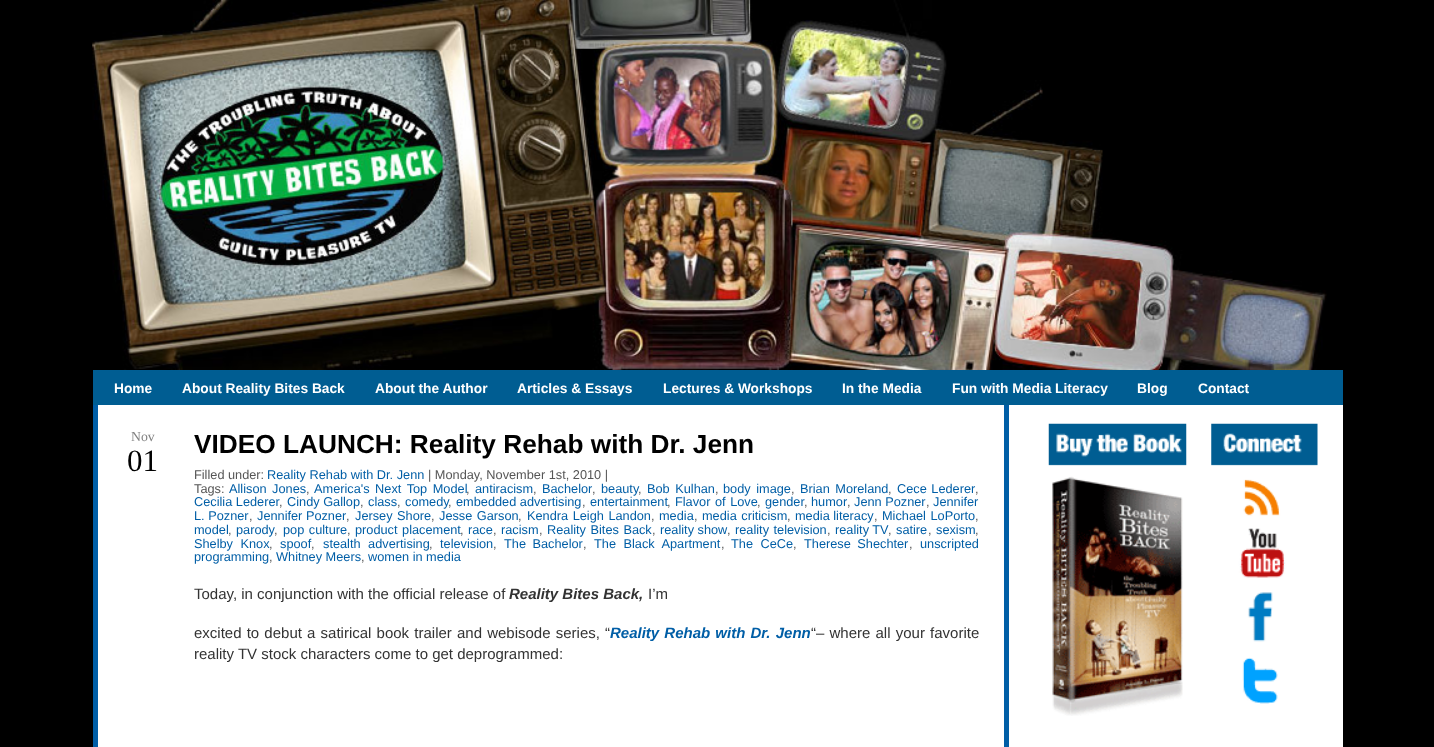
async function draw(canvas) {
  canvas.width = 1434
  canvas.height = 747
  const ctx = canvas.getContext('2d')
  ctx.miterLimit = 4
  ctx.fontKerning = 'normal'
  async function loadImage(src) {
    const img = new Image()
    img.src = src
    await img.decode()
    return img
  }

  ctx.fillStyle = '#000'
  ctx.fillRect(0, 0, 1434, 747)
  ctx.drawImage(await loadImage('image0.png'), 92, 0, 1, 370)
  ctx.drawImage(await loadImage('image1.png'), 92, 0, 1235, 370)
  ctx.fillStyle = '#005d92'
  ctx.fillRect(93, 370, 1250, 35)
  ctx.font = 'bold 13.75px Liberation Sans'
  ctx.fillStyle = '#fff'
  ctx.fillText('Home', 114, 393)
  ctx.fillText('About Reality Bites Back', 182, 393)
  ctx.fillText('About the Author', 375, 393)
  ctx.fillText('Articles & Essays', 517, 393)
  ctx.fillText('Lectures & Workshops', 663, 393)
  ctx.fillText('In the Media', 842, 393)
  ctx.fillText('Fun with Media Literacy', 952, 393)
  ctx.fillText('Blog', 1137, 393)
  ctx.fillText('Contact', 1198, 393)
  ctx.fillRect(98, 405, 1245, 342)
  ctx.fillStyle = '#005ea6'
  ctx.fillRect(1004, 405, 5, 342)
  ctx.fillRect(93, 405, 5, 342)
  ctx.font = '13.75px Liberation Serif'
  ctx.fillStyle = '#828282'
  ctx.fillText('Nov', 131, 441)
  ctx.font = '31px Liberation Serif'
  ctx.fillStyle = '#000'
  ctx.fillText('01', 127, 471)
  ctx.font = 'bold 26.25px Liberation Sans'
  ctx.fillText('VIDEO LAUNCH: Reality Rehab with Dr. Jenn', 194, 453)
  ctx.font = '12.75px Liberation Sans'
  ctx.fillStyle = '#555'
  ctx.fillText('Filled under:', 194, 479)
  ctx.fillStyle = '#005ea6'
  ctx.fillText('Reality Rehab with Dr. Jenn', 267, 479)
  ctx.fillStyle = '#555'
  ctx.fillText('| Monday, November 1st, 2010 |', 428, 479)
  ctx.fillText('Tags:', 194, 493)
  ctx.wordSpacing = '2px'
  ctx.fillStyle = '#005ea6'
  ctx.fillText('Allison Jones', 229, 493)
  ctx.wordSpacing = '0px'
  ctx.fillStyle = '#555'
  ctx.fillText(',', 306, 493)
  ctx.wordSpacing = '2px'
  ctx.fillStyle = '#005ea6'
  ctx.fillText('America\'s Next Top Model', 314, 493)
  ctx.wordSpacing = '0px'
  ctx.fillStyle = '#555'
  ctx.fillText(',', 466, 493)
  ctx.fillStyle = '#005ea6'
  ctx.fillText('antiracism', 475, 493)
  ctx.fillStyle = '#555'
  ctx.fillText(',', 533, 493)
  ctx.fillStyle = '#005ea6'
  ctx.fillText('Bachelor', 542, 493)
  ctx.fillStyle = '#555'
  ctx.fillText(',', 592, 493)
  ctx.fillStyle = '#005ea6'
  ctx.fillText('beauty', 601, 493)
  ctx.fillStyle = '#555'
  ctx.fillText(',', 638, 493)
  ctx.wordSpacing = '2px'
  ctx.fillStyle = '#005ea6'
  ctx.fillText('Bob Kulhan', 647, 493)
  ctx.wordSpacing = '0px'
  ctx.fillStyle = '#555'
  ctx.fillText(',', 715, 493)
  ctx.wordSpacing = '2px'
  ctx.fillStyle = '#005ea6'
  ctx.fillText('body image', 723, 493)
  ctx.wordSpacing = '0px'
  ctx.fillStyle = '#555'
  ctx.fillText(',', 791, 493)
  ctx.wordSpacing = '2px'
  ctx.fillStyle = '#005ea6'
  ctx.fillText('Brian Moreland', 800, 493)
  ctx.wordSpacing = '0px'
  ctx.fillStyle = '#555'
  ctx.fillText(',', 888, 493)
  ctx.wordSpacing = '1px'
  ctx.fillStyle = '#005ea6'
  ctx.fillText('Cece Lederer', 897, 493)
  ctx.wordSpacing = '0px'
  ctx.fillStyle = '#555'
  ctx.fillText(',', 975, 493)
  ctx.fillStyle = '#005ea6'
  ctx.fillText('Cecilia Lederer', 194, 506)
  ctx.fillStyle = '#555'
  ctx.fillText(',', 279, 506)
  ctx.fillStyle = '#005ea6'
  ctx.fillText('Cindy Gallop', 287, 506)
  ctx.fillStyle = '#555'
  ctx.fillText(',', 360, 506)
  ctx.fillStyle = '#005ea6'
  ctx.fillText('class', 368, 506)
  ctx.fillStyle = '#555'
  ctx.fillText(',', 397, 506)
  ctx.fillStyle = '#005ea6'
  ctx.fillText('comedy', 405, 506)
  ctx.fillText('embedded advertising', 456, 506)
  ctx.fillText('entertainment', 590, 506)
  ctx.wordSpacing = '1px'
  ctx.fillText('Flavor of Love', 675, 506)
  ctx.wordSpacing = '0px'
  ctx.fillText('gender', 765, 506)
  ctx.fillText('humor', 811, 506)
  ctx.fillText('Jenn Pozner', 854, 506)
  ctx.fillText('Jennifer', 933, 506)
  ctx.fillStyle = '#555'
  ctx.fillText(',', 448, 506)
  ctx.fillText(',', 582, 506)
  ctx.fillText(',', 667, 506)
  ctx.fillText(',', 757, 506)
  ctx.fillText(',', 804, 506)
  ctx.fillText(',', 847, 506)
  ctx.fillText(',', 926, 506)
  ctx.fillStyle = '#005ea6'
  ctx.fillText('L. Pozner', 194, 520)
  ctx.fillStyle = '#555'
  ctx.fillText(',', 249, 520)
  ctx.fillStyle = '#005ea6'
  ctx.fillText('Jennifer Pozner', 257, 520)
  ctx.fillStyle = '#555'
  ctx.fillText(',', 346, 520)
  ctx.wordSpacing = '1px'
  ctx.fillStyle = '#005ea6'
  ctx.fillText('Jersey Shore', 355, 520)
  ctx.wordSpacing = '0px'
  ctx.fillStyle = '#555'
  ctx.fillText(',', 431, 520)
  ctx.wordSpacing = '1px'
  ctx.fillStyle = '#005ea6'
  ctx.fillText('Jesse Garson', 439, 520)
  ctx.wordSpacing = '0px'
  ctx.fillStyle = '#555'
  ctx.fillText(',', 518, 520)
  ctx.wordSpacing = '1px'
  ctx.fillStyle = '#005ea6'
  ctx.fillText('Kendra Leigh Landon', 527, 520)
  ctx.wordSpacing = '0px'
  ctx.fillStyle = '#555'
  ctx.fillText(',', 651, 520)
  ctx.fillStyle = '#005ea6'
  ctx.fillText('media', 659, 520)
  ctx.fillStyle = '#555'
  ctx.fillText(',', 694, 520)
  ctx.wordSpacing = '1px'
  ctx.fillStyle = '#005ea6'
  ctx.fillText('media criticism', 702, 520)
  ctx.wordSpacing = '0px'
  ctx.fillStyle = '#555'
  ctx.fillText(',', 787, 520)
  ctx.fillStyle = '#005ea6'
  ctx.fillText('media literacy', 795, 520)
  ctx.fillStyle = '#555'
  ctx.fillText(',', 874, 520)
  ctx.wordSpacing = '1px'
  ctx.fillStyle = '#005ea6'
  ctx.fillText('Michael LoPorto', 882, 520)
  ctx.wordSpacing = '0px'
  ctx.fillStyle = '#555'
  ctx.fillText(',', 975, 520)
  ctx.fillStyle = '#005ea6'
  ctx.fillText('model', 194, 534)
  ctx.fillStyle = '#555'
  ctx.fillText(',', 228, 534)
  ctx.fillStyle = '#005ea6'
  ctx.fillText('parody', 236, 534)
  ctx.wordSpacing = '1px'
  ctx.fillText('pop culture', 283, 534)
  ctx.fillText('product placement', 355, 534)
  ctx.wordSpacing = '0px'
  ctx.fillText('race', 468, 534)
  ctx.fillText('racism', 501, 534)
  ctx.wordSpacing = '1px'
  ctx.fillText('Reality Bites Back', 547, 534)
  ctx.wordSpacing = '0px'
  ctx.fillText('reality show', 660, 534)
  ctx.wordSpacing = '1px'
  ctx.fillText('reality television', 735, 534)
  ctx.wordSpacing = '0px'
  ctx.fillText('reality TV', 835, 534)
  ctx.fillText('satire', 896, 534)
  ctx.fillText('sexism', 936, 534)
  ctx.fillStyle = '#555'
  ctx.fillText(',', 274, 534)
  ctx.fillText(',', 347, 534)
  ctx.fillText(',', 460, 534)
  ctx.fillText(',', 493, 534)
  ctx.fillText(',', 539, 534)
  ctx.fillText(',', 652, 534)
  ctx.fillText(',', 727, 534)
  ctx.fillText(',', 827, 534)
  ctx.fillText(',', 888, 534)
  ctx.fillText(',', 928, 534)
  ctx.fillText(',', 975, 534)
  ctx.wordSpacing = '4px'
  ctx.fillStyle = '#005ea6'
  ctx.fillText('Shelby Knox', 194, 548)
  ctx.wordSpacing = '0px'
  ctx.fillStyle = '#555'
  ctx.fillText(',', 269, 548)
  ctx.fillStyle = '#005ea6'
  ctx.fillText('spoof', 280, 548)
  ctx.fillStyle = '#555'
  ctx.fillText(',', 311, 548)
  ctx.wordSpacing = '4px'
  ctx.fillStyle = '#005ea6'
  ctx.fillText('stealth advertising', 323, 548)
  ctx.wordSpacing = '0px'
  ctx.fillStyle = '#555'
  ctx.fillText(',', 429, 548)
  ctx.fillStyle = '#005ea6'
  ctx.fillText('television', 440, 548)
  ctx.fillStyle = '#555'
  ctx.fillText(',', 493, 548)
  ctx.wordSpacing = '3px'
  ctx.fillStyle = '#005ea6'
  ctx.fillText('The Bachelor', 504, 548)
  ctx.wordSpacing = '0px'
  ctx.fillStyle = '#555'
  ctx.fillText(',', 583, 548)
  ctx.wordSpacing = '4px'
  ctx.fillStyle = '#005ea6'
  ctx.fillText('The Black Apartment', 594, 548)
  ctx.wordSpacing = '0px'
  ctx.fillStyle = '#555'
  ctx.fillText(',', 721, 548)
  ctx.wordSpacing = '4px'
  ctx.fillStyle = '#005ea6'
  ctx.fillText('The CeCe', 731, 548)
  ctx.wordSpacing = '0px'
  ctx.fillStyle = '#555'
  ctx.fillText(',', 793, 548)
  ctx.wordSpacing = '3px'
  ctx.fillStyle = '#005ea6'
  ctx.fillText('Therese Shechter', 804, 548)
  ctx.wordSpacing = '0px'
  ctx.fillStyle = '#555'
  ctx.fillText(',', 909, 548)
  ctx.fillStyle = '#005ea6'
  ctx.fillText('unscripted', 920, 548)
  ctx.fillText('programming', 194, 561)
  ctx.fillStyle = '#555'
  ctx.fillText(',', 269, 561)
  ctx.fillStyle = '#005ea6'
  ctx.fillText('Whitney Meers', 276, 561)
  ctx.fillStyle = '#555'
  ctx.fillText(',', 361, 561)
  ctx.fillStyle = '#005ea6'
  ctx.fillText('women in media', 368, 561)
  ctx.font = '15px Liberation Sans'
  ctx.fillStyle = '#333'
  ctx.fillText('Today, in conjunction with the official release of', 194, 599)
  ctx.font = 'italic bold 15px Liberation Sans'
  ctx.fillText('Reality Bites Back,', 509, 599)
  ctx.font = '15px Liberation Sans'
  ctx.fillText('I’m', 648, 599)
  ctx.wordSpacing = '1px'
  ctx.fillText('excited to debut a satirical book trailer and webisode series, “', 194, 638)
  ctx.font = 'italic bold 15px Liberation Sans'
  ctx.fillStyle = '#005ea6'
  ctx.fillText('Reality Rehab with Dr. Jenn', 610, 638)
  ctx.font = '15px Liberation Sans'
  ctx.fillStyle = '#333'
  ctx.fillText('“– where all your favorite', 811, 638)
  ctx.wordSpacing = '0px'
  ctx.fillText('reality TV stock characters come to get deprogrammed:', 194, 659)
  ctx.drawImage(await loadImage('image2.png'), 1048, 423, 139, 293)
  ctx.drawImage(await loadImage('image3.png'), 1211, 423, 107, 281)
}

draw(document.querySelector('canvas'))
